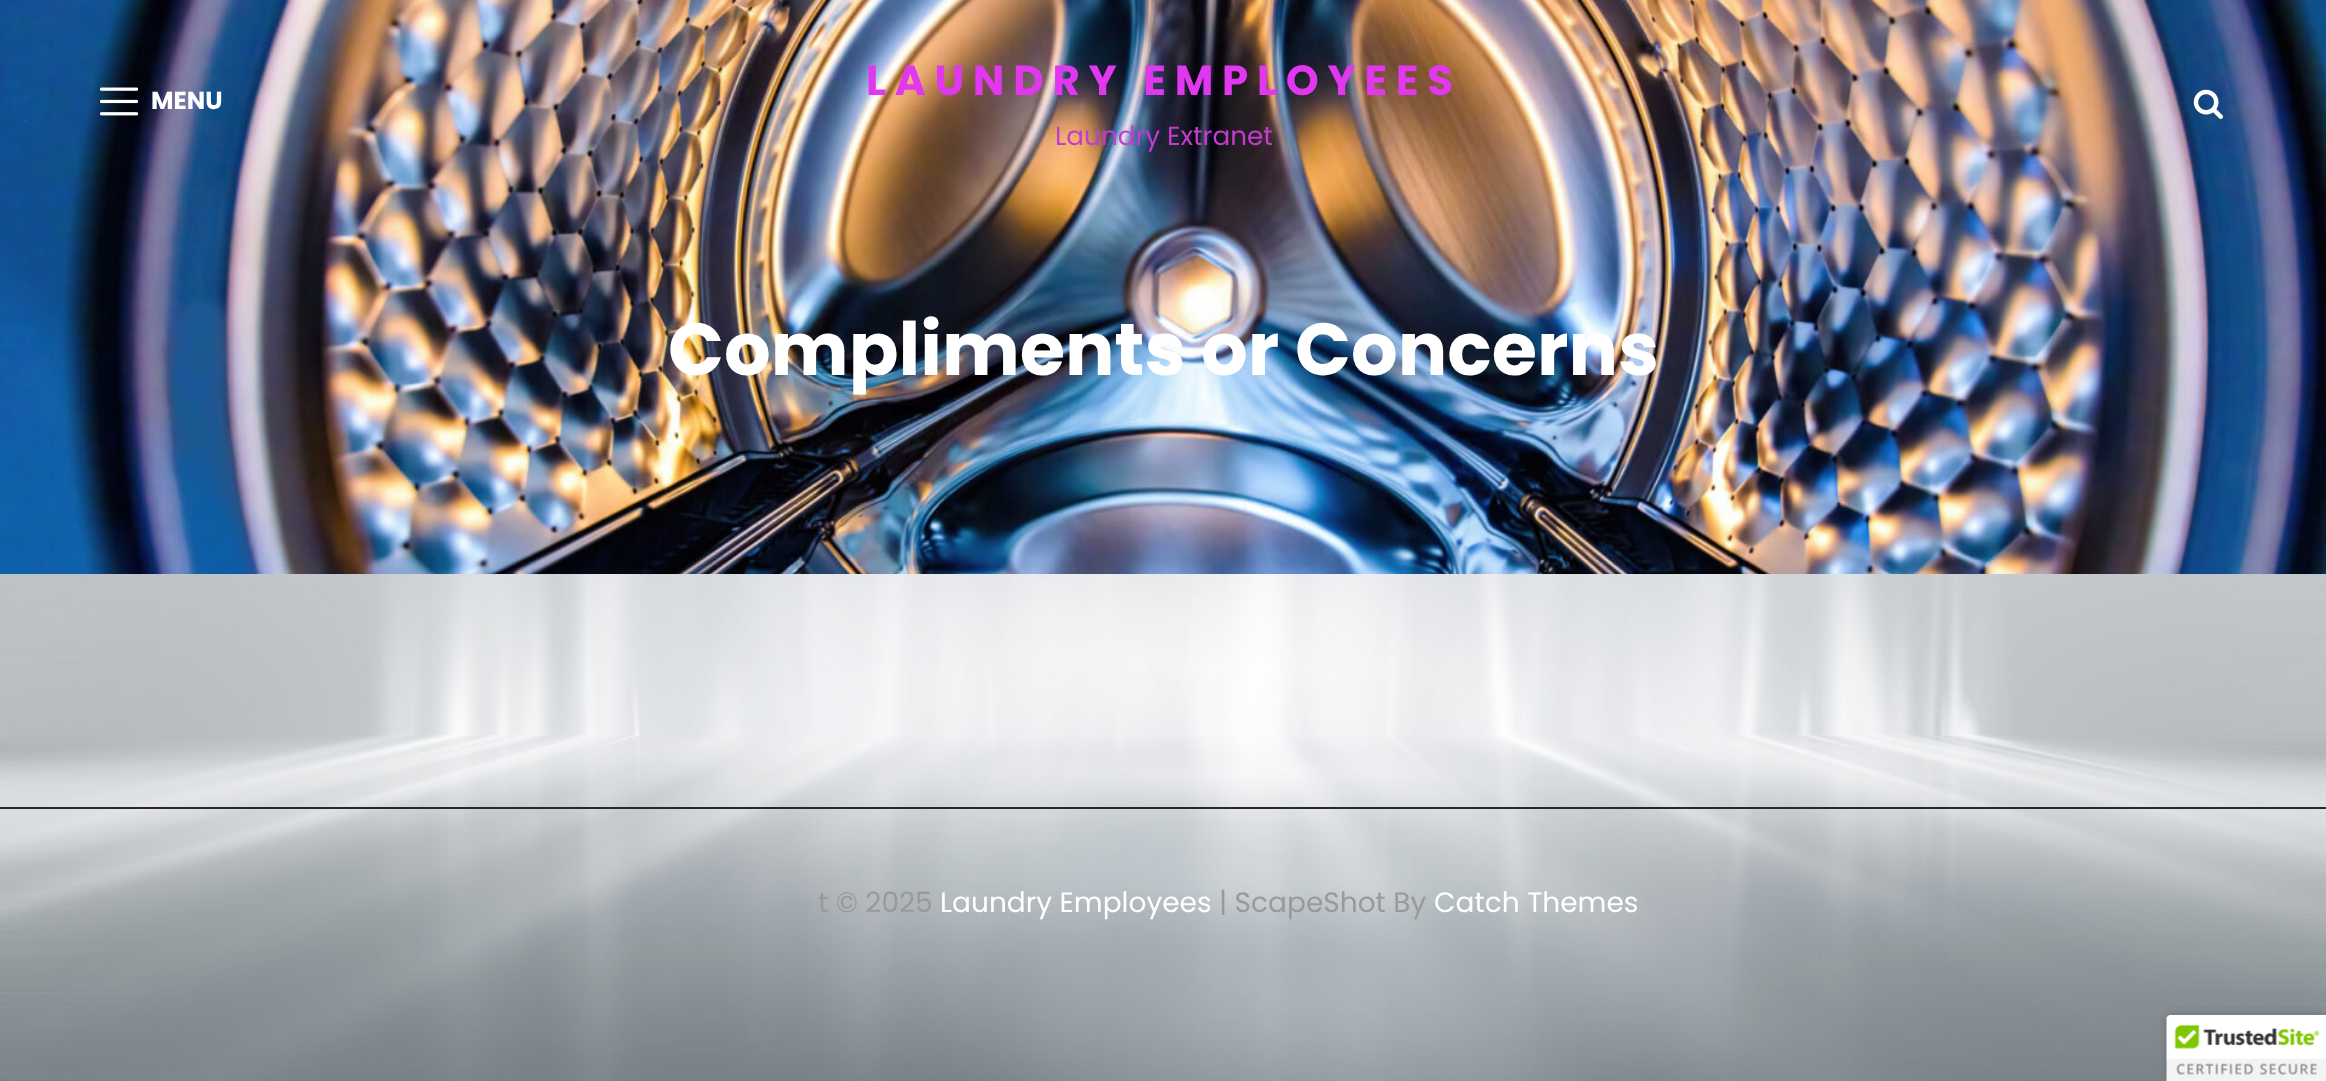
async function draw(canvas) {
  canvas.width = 2326
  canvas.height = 1081
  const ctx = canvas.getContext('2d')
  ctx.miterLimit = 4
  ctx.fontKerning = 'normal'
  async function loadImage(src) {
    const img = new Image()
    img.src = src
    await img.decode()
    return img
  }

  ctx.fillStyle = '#fff'
  ctx.fillRect(0, 0, 2326, 1081)
  ctx.drawImage(await loadImage('image0.png'), 0, 574, 2326, 507)
  ctx.drawImage(await loadImage('image3.png'), 0, 0, 2326, 574)
  ctx.drawImage(await loadImage('image1.png'), 100, 87, 38, 29)
  ctx.font = 'bold 24.5px Poppins'
  ctx.fillText('MENU', 151, 109)
  ctx.letterSpacing = '8.75px'
  ctx.font = 'bold 42px Poppins'
  ctx.fillStyle = '#e037ef'
  ctx.fillText('LAUNDRY EMPLOYEES', 866, 95)
  ctx.letterSpacing = '0px'
  ctx.font = '26.25px Poppins'
  ctx.fillStyle = '#c43cce'
  ctx.fillText('Laundry Extranet', 1055, 145)
  ctx.drawImage(await loadImage('image2.png'), 2193, 89, 30, 30)
  ctx.font = 'bold 73.5px Poppins'
  ctx.fillStyle = '#fff'
  ctx.fillText('Compliments or Concerns', 668, 375)
  ctx.fillStyle = '#282828'
  ctx.fillRect(0, 807, 2326, 2)
  ctx.font = '28px Poppins'
  ctx.fillStyle = '#999'
  ctx.fillText('t © 2025', 818, 912)
  ctx.fillStyle = '#fff'
  ctx.fillText('Laundry Employees', 940, 912)
  ctx.fillStyle = '#999'
  ctx.fillText('| ScapeShot By', 1219, 912)
  ctx.fillStyle = '#fff'
  ctx.fillText('Catch Themes', 1434, 912)
  ctx.fillStyle = '#00000033'
  ctx.filter = 'blur(4.5px)'
  ctx.beginPath()
  ctx.roundRect(2167, 1015, 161, 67, 4)
  ctx.fill()
  ctx.filter = 'none'
  ctx.fillStyle = '#fff'
  ctx.beginPath()
  ctx.moveTo(2171, 1015)
  ctx.lineTo(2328, 1015)
  ctx.lineTo(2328, 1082)
  ctx.lineTo(2167, 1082)
  ctx.lineTo(2167, 1019)
  ctx.bezierCurveTo(2167, 1017, 2169, 1015, 2171, 1015)
  ctx.closePath()
  ctx.fill()
  ctx.drawImage(await loadImage('image4.png'), 2166, 1015, 160, 66)
}

draw(document.querySelector('canvas'))
